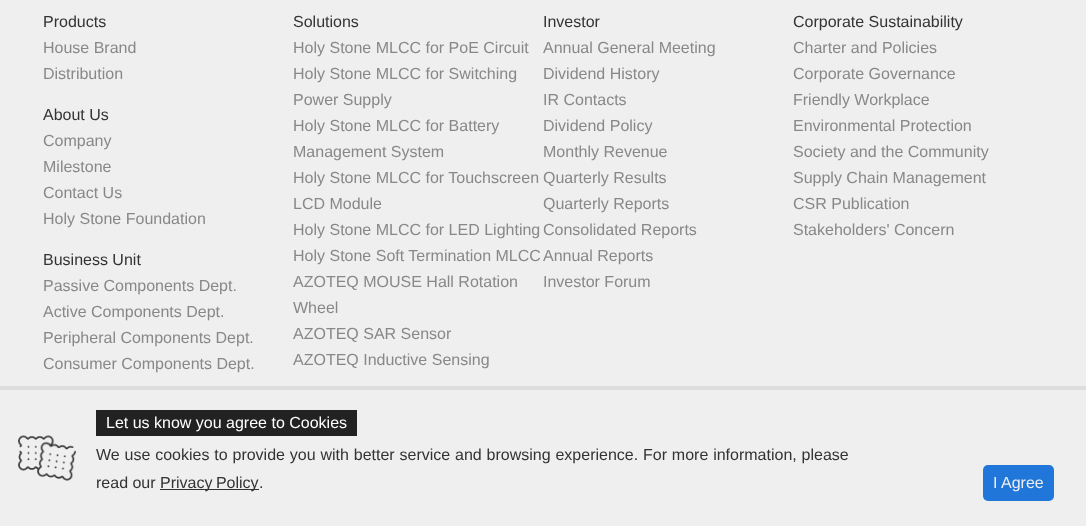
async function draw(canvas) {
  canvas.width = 1086
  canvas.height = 526
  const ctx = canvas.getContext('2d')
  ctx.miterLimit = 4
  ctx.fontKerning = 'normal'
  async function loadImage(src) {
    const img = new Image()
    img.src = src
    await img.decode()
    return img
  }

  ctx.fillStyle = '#efefef'
  ctx.fillRect(0, 0, 1086, 526)
  ctx.font = '16px Liberation Sans'
  ctx.fillStyle = '#333'
  ctx.fillText('Products', 43, 27)
  ctx.fillStyle = '#888'
  ctx.fillText('House Brand', 43, 53)
  ctx.fillText('Distribution', 43, 79)
  ctx.fillStyle = '#333'
  ctx.fillText('Solutions', 293, 27)
  ctx.fillStyle = '#888'
  ctx.fillText('Holy Stone MLCC for PoE Circuit', 293, 53)
  ctx.fillText('Holy Stone MLCC for Switching', 293, 79)
  ctx.fillText('Power Supply', 293, 105)
  ctx.fillText('Holy Stone MLCC for Battery', 293, 131)
  ctx.fillText('Management System', 293, 157)
  ctx.fillText('Holy Stone MLCC for Touchscreen', 293, 183)
  ctx.fillText('LCD Module', 293, 209)
  ctx.fillText('Holy Stone MLCC for LED Lighting', 293, 235)
  ctx.fillText('Holy Stone Soft Termination MLCC', 293, 261)
  ctx.fillText('AZOTEQ MOUSE Hall Rotation', 293, 287)
  ctx.fillText('Wheel', 293, 313)
  ctx.fillText('AZOTEQ SAR Sensor', 293, 339)
  ctx.fillText('AZOTEQ Inductive Sensing', 293, 365)
  ctx.fillStyle = '#333'
  ctx.fillText('Investor', 543, 27)
  ctx.fillStyle = '#888'
  ctx.fillText('Annual General Meeting', 543, 53)
  ctx.fillText('Dividend History', 543, 79)
  ctx.fillText('IR Contacts', 543, 105)
  ctx.fillText('Dividend Policy', 543, 131)
  ctx.fillText('Monthly Revenue', 543, 157)
  ctx.fillText('Quarterly Results', 543, 183)
  ctx.fillText('Quarterly Reports', 543, 209)
  ctx.fillText('Consolidated Reports', 543, 235)
  ctx.fillText('Annual Reports', 543, 261)
  ctx.fillText('Investor Forum', 543, 287)
  ctx.fillStyle = '#333'
  ctx.fillText('Corporate Sustainability', 793, 27)
  ctx.fillStyle = '#888'
  ctx.fillText('Charter and Policies', 793, 53)
  ctx.fillText('Corporate Governance', 793, 79)
  ctx.fillText('Friendly Workplace', 793, 105)
  ctx.fillText('Environmental Protection', 793, 131)
  ctx.fillText('Society and the Community', 793, 157)
  ctx.fillText('Supply Chain Management', 793, 183)
  ctx.fillText('CSR Publication', 793, 209)
  ctx.fillText('Stakeholders\' Concern', 793, 235)
  ctx.fillStyle = '#333'
  ctx.fillText('About Us', 43, 120)
  ctx.fillStyle = '#888'
  ctx.fillText('Company', 43, 146)
  ctx.fillText('Milestone', 43, 172)
  ctx.fillText('Contact Us', 43, 198)
  ctx.fillText('Holy Stone Foundation', 43, 224)
  ctx.fillStyle = '#333'
  ctx.fillText('Business Unit', 43, 265)
  ctx.fillStyle = '#888'
  ctx.fillText('Passive Components Dept.', 43, 291)
  ctx.fillText('Active Components Dept.', 43, 317)
  ctx.fillText('Peripheral Components Dept.', 43, 343)
  ctx.fillText('Consumer Components Dept.', 43, 369)
  ctx.fillStyle = '#ddd'
  ctx.fillRect(0, 386, 1086, 4)
  ctx.fillStyle = '#222'
  ctx.fillRect(96, 410, 261, 26)
  ctx.fillStyle = '#fff'
  ctx.fillText('Let us know you agree to Cookies', 106, 428)
  ctx.drawImage(await loadImage('image0.png'), 18, 435, 58, 46)
  ctx.wordSpacing = '0.4px'
  ctx.fillStyle = '#333'
  ctx.fillText('We use cookies to provide you with better service and browsing experience. For more information, please', 96, 460)
  ctx.wordSpacing = '0px'
  ctx.fillText('read our', 96, 488)
  ctx.fillRect(160, 489, 99, 1)
  ctx.wordSpacing = '-1px'
  ctx.fillText('Privacy Policy', 160, 488)
  ctx.wordSpacing = '0px'
  ctx.fillText('.', 259, 488)
  ctx.fillStyle = '#2077d9'
  ctx.beginPath()
  ctx.roundRect(983, 465, 71, 36, 5)
  ctx.fill()
  ctx.fillStyle = '#eee'
  ctx.fillText('I Agree', 993, 488)
}

draw(document.querySelector('canvas'))
